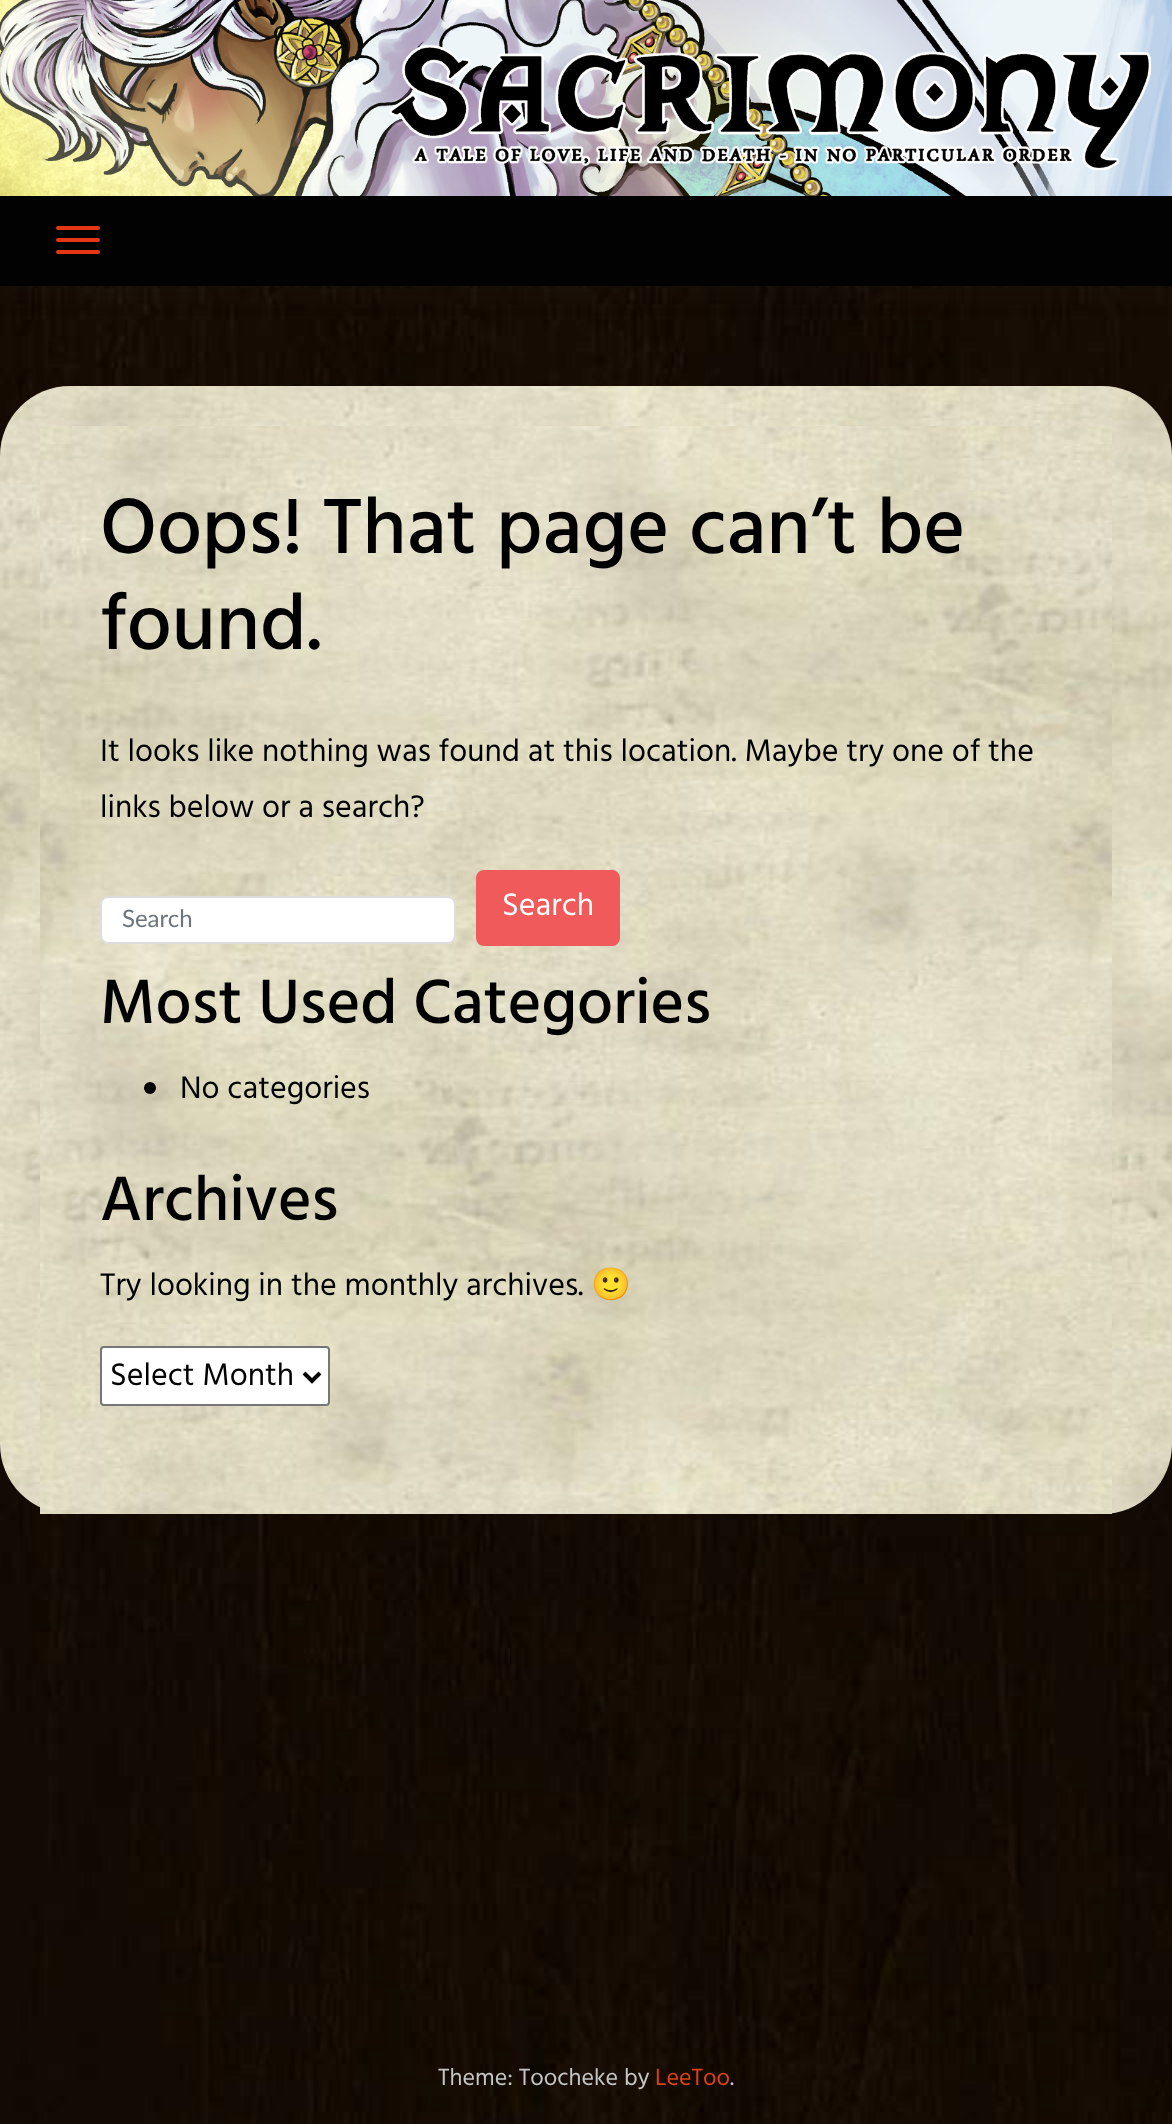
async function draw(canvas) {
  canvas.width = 1172
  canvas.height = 2124
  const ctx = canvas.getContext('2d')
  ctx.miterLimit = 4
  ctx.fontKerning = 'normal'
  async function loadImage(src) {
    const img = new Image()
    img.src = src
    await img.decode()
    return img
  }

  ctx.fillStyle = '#fff'
  ctx.fillRect(0, 0, 1172, 2124)
  ctx.drawImage(await loadImage('image0.png'), 0, 286, 1172, 1838)
  ctx.drawImage(await loadImage('image1.png'), 0, 0, 1172, 196)
  ctx.fillStyle = '#32323214'
  ctx.filter = 'blur(11px)'
  ctx.beginPath()
  ctx.rect(0, 206, 1172, 90)
  ctx.fill()
  ctx.filter = 'none'
  ctx.fillStyle = '#020202'
  ctx.fillRect(0, 196, 1172, 90)
  ctx.fillStyle = '#e23614'
  ctx.beginPath()
  ctx.roundRect(56, 226, 44, 4, 2)
  ctx.fill()
  ctx.beginPath()
  ctx.roundRect(56, 238, 44, 4, 2)
  ctx.fill()
  ctx.beginPath()
  ctx.roundRect(56, 250, 44, 4, 2)
  ctx.fill()
  ctx.drawImage(await loadImage('image2.png'), 0, 386, 1172, 1128)
  ctx.drawImage(await loadImage('image3.png'), 40, 426, 1072, 1088)
  ctx.font = '500 80px Hind'
  ctx.fillStyle = '#000'
  ctx.fillText('Oops! That page can’t be', 100, 553)
  ctx.fillText('found.', 100, 649)
  ctx.font = '32px Hind'
  ctx.fillText('It looks like nothing was found at this location. Maybe try one of the', 100, 761)
  ctx.fillText('links below or a search?', 100, 817)
  ctx.fillStyle = '#f15a5a'
  ctx.beginPath()
  ctx.roundRect(477, 871, 142, 74, 7)
  ctx.fill()
  ctx.strokeStyle = '#f15a5a'
  ctx.lineWidth = 2
  ctx.stroke()
  ctx.fillStyle = '#fff'
  ctx.fillText('Search', 502, 915)
  ctx.beginPath()
  ctx.roundRect(101, 897, 354, 46, 7)
  ctx.fill()
  ctx.strokeStyle = '#ddd'
  ctx.stroke()
  ctx.font = '24px Lato'
  ctx.fillStyle = '#6c757d'
  ctx.fillText('Search', 122, 927)
  ctx.font = '500 64px Hind'
  ctx.fillStyle = '#000'
  ctx.fillText('Most Used Categories', 100, 1023)
  ctx.beginPath()
  ctx.arc(150, 1088, 6, 0, 2 * Math.PI)
  ctx.fill()
  ctx.font = '32px Hind'
  ctx.fillText('No categories', 180, 1098)
  ctx.font = '500 64px Hind'
  ctx.fillText('Archives', 100, 1220)
  ctx.font = '32px Hind'
  ctx.fillText('Try looking in the monthly archives.', 100, 1295)
  ctx.font = '32px Noto Color Emoji'
  ctx.fillText('🙂', 591, 1295)
  ctx.fillStyle = '#fff'
  ctx.beginPath()
  ctx.roundRect(101, 1347, 228, 58, 3)
  ctx.fill()
  ctx.strokeStyle = '#767676'
  ctx.stroke()
  ctx.beginPath()
  ctx.moveTo(304, 1373)
  ctx.lineTo(312, 1381)
  ctx.lineTo(320, 1373)
  ctx.strokeStyle = '#000'
  ctx.lineWidth = 4
  ctx.stroke()
  ctx.font = '32px Hind'
  ctx.fillStyle = '#000'
  ctx.fillText('Select Month', 110, 1385)
  ctx.font = '24px Hind'
  ctx.fillStyle = '#c5c5c5'
  ctx.fillText('Theme: Toocheke by', 438, 2085)
  ctx.fillStyle = '#db4213'
  ctx.fillText('LeeToo', 655, 2085)
  ctx.fillStyle = '#c5c5c5'
  ctx.fillText('.', 730, 2085)
}

draw(document.querySelector('canvas'))
